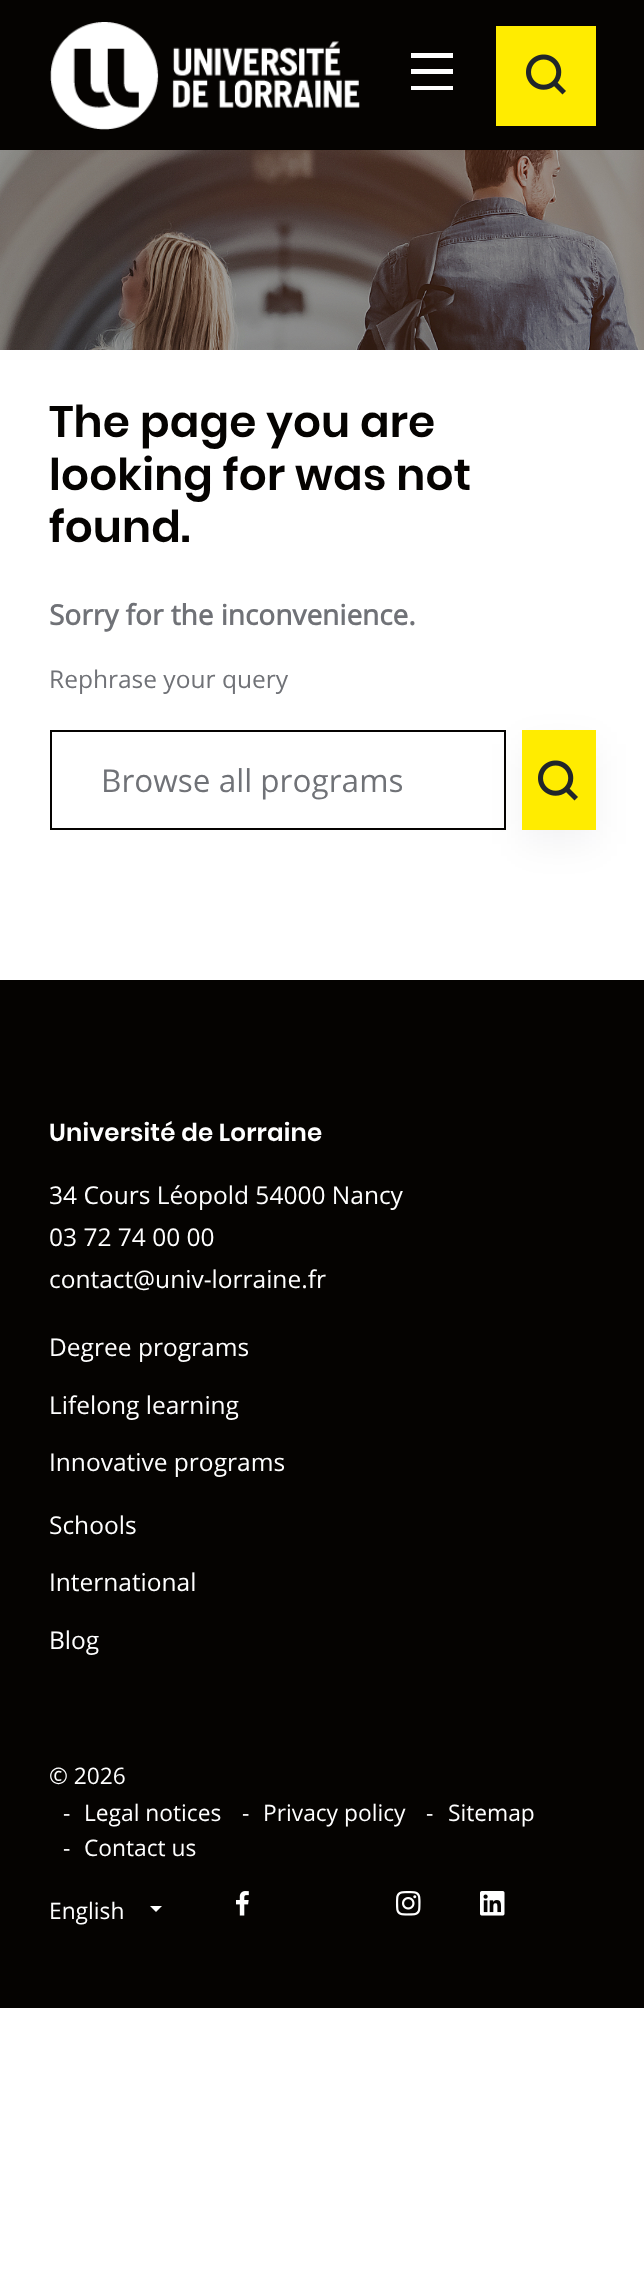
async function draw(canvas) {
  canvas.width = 644
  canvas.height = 2276
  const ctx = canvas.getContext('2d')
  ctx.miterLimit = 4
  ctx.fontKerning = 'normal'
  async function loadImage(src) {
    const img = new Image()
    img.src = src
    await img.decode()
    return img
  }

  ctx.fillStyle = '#fff'
  ctx.fillRect(0, 0, 644, 2276)
  ctx.fillStyle = '#050301'
  ctx.fillRect(0, 0, 644, 150)
  ctx.drawImage(await loadImage('image0.png'), 50, 22, 310, 108)
  ctx.fillStyle = '#fff'
  ctx.beginPath()
  ctx.moveTo(411, 90)
  ctx.lineTo(453, 90)
  ctx.lineTo(453, 86)
  ctx.lineTo(411, 86)
  ctx.closePath()
  ctx.moveTo(411, 74)
  ctx.lineTo(453, 74)
  ctx.lineTo(453, 69)
  ctx.lineTo(411, 69)
  ctx.closePath()
  ctx.moveTo(411, 53)
  ctx.lineTo(411, 58)
  ctx.lineTo(453, 58)
  ctx.lineTo(453, 53)
  ctx.closePath()
  ctx.fill()
  ctx.fillStyle = '#ffec00'
  ctx.fillRect(496, 26, 100, 100)
  ctx.drawImage(await loadImage('image1.png'), 526, 54, 40, 41)
  ctx.drawImage(await loadImage('image2.png'), 0, 150, 644, 200)
  ctx.letterSpacing = '0.2px'
  ctx.font = '600 43.75px Poppins'
  ctx.fillStyle = '#050301'
  ctx.fillText('The page you are', 49, 437)
  ctx.fillText('looking for was not', 49, 490)
  ctx.fillText('found.', 49, 542)
  ctx.letterSpacing = '0px'
  ctx.font = 'bold 28px Open Sans'
  ctx.fillStyle = '#707277'
  ctx.fillText('Sorry for the inconvenience.', 49, 625)
  ctx.font = '24.5px Open Sans'
  ctx.fillText('Rephrase your query', 49, 688)
  ctx.strokeStyle = '#050301'
  ctx.lineWidth = 2
  ctx.strokeRect(51, 731, 454, 98)
  ctx.font = '31.5px Open Sans'
  ctx.fillText('Browse all programs', 101, 792)
  ctx.fillStyle = '#05030a0d'
  ctx.filter = 'blur(18px)'
  ctx.beginPath()
  ctx.rect(522, 744, 74, 100)
  ctx.fill()
  ctx.filter = 'none'
  ctx.fillStyle = '#ffec00'
  ctx.fillRect(522, 730, 74, 100)
  ctx.drawImage(await loadImage('image1.png'), 538, 760, 40, 41)
  ctx.fillStyle = '#050301'
  ctx.fillRect(0, 980, 644, 1028)
  ctx.letterSpacing = '0.2px'
  ctx.font = '600 24.5px Poppins'
  ctx.fillStyle = '#fff'
  ctx.fillText('Université de Lorraine', 49, 1141)
  ctx.letterSpacing = '0px'
  ctx.font = '24.5px Open Sans'
  ctx.fillText('34 Cours Léopold 54000 Nancy', 49, 1204)
  ctx.fillText('03 72 74 00 00', 49, 1246)
  ctx.fillText('contact@univ-lorraine.fr', 49, 1288)
  ctx.fillText('Degree programs', 49, 1356)
  ctx.fillText('Lifelong learning', 49, 1414)
  ctx.fillText('Innovative programs', 49, 1471)
  ctx.fillText('Schools', 49, 1534)
  ctx.fillText('International', 49, 1591)
  ctx.fillText('Blog', 49, 1649)
  ctx.font = '22.75px Open Sans'
  ctx.fillText('© 2026', 49, 1784)
  ctx.fillText('-', 63, 1821)
  ctx.fillText('Legal notices', 84, 1821)
  ctx.fillText('-', 242, 1821)
  ctx.fillText('Privacy policy', 263, 1821)
  ctx.fillText('-', 426, 1821)
  ctx.fillText('Sitemap', 448, 1821)
  ctx.fillText('-', 63, 1856)
  ctx.fillText('Contact us', 84, 1856)
  ctx.fillText('English', 49, 1919)
  ctx.beginPath()
  ctx.moveTo(150, 1906)
  ctx.lineTo(162, 1906)
  ctx.lineTo(156, 1912)
  ctx.closePath()
  ctx.fill()
  ctx.drawImage(await loadImage('image3.png'), 236, 1891, 13, 25)
  ctx.drawImage(await loadImage('image4.png'), 395, 1891, 26, 25)
  ctx.drawImage(await loadImage('image5.png'), 480, 1891, 25, 25)
}

draw(document.querySelector('canvas'))
